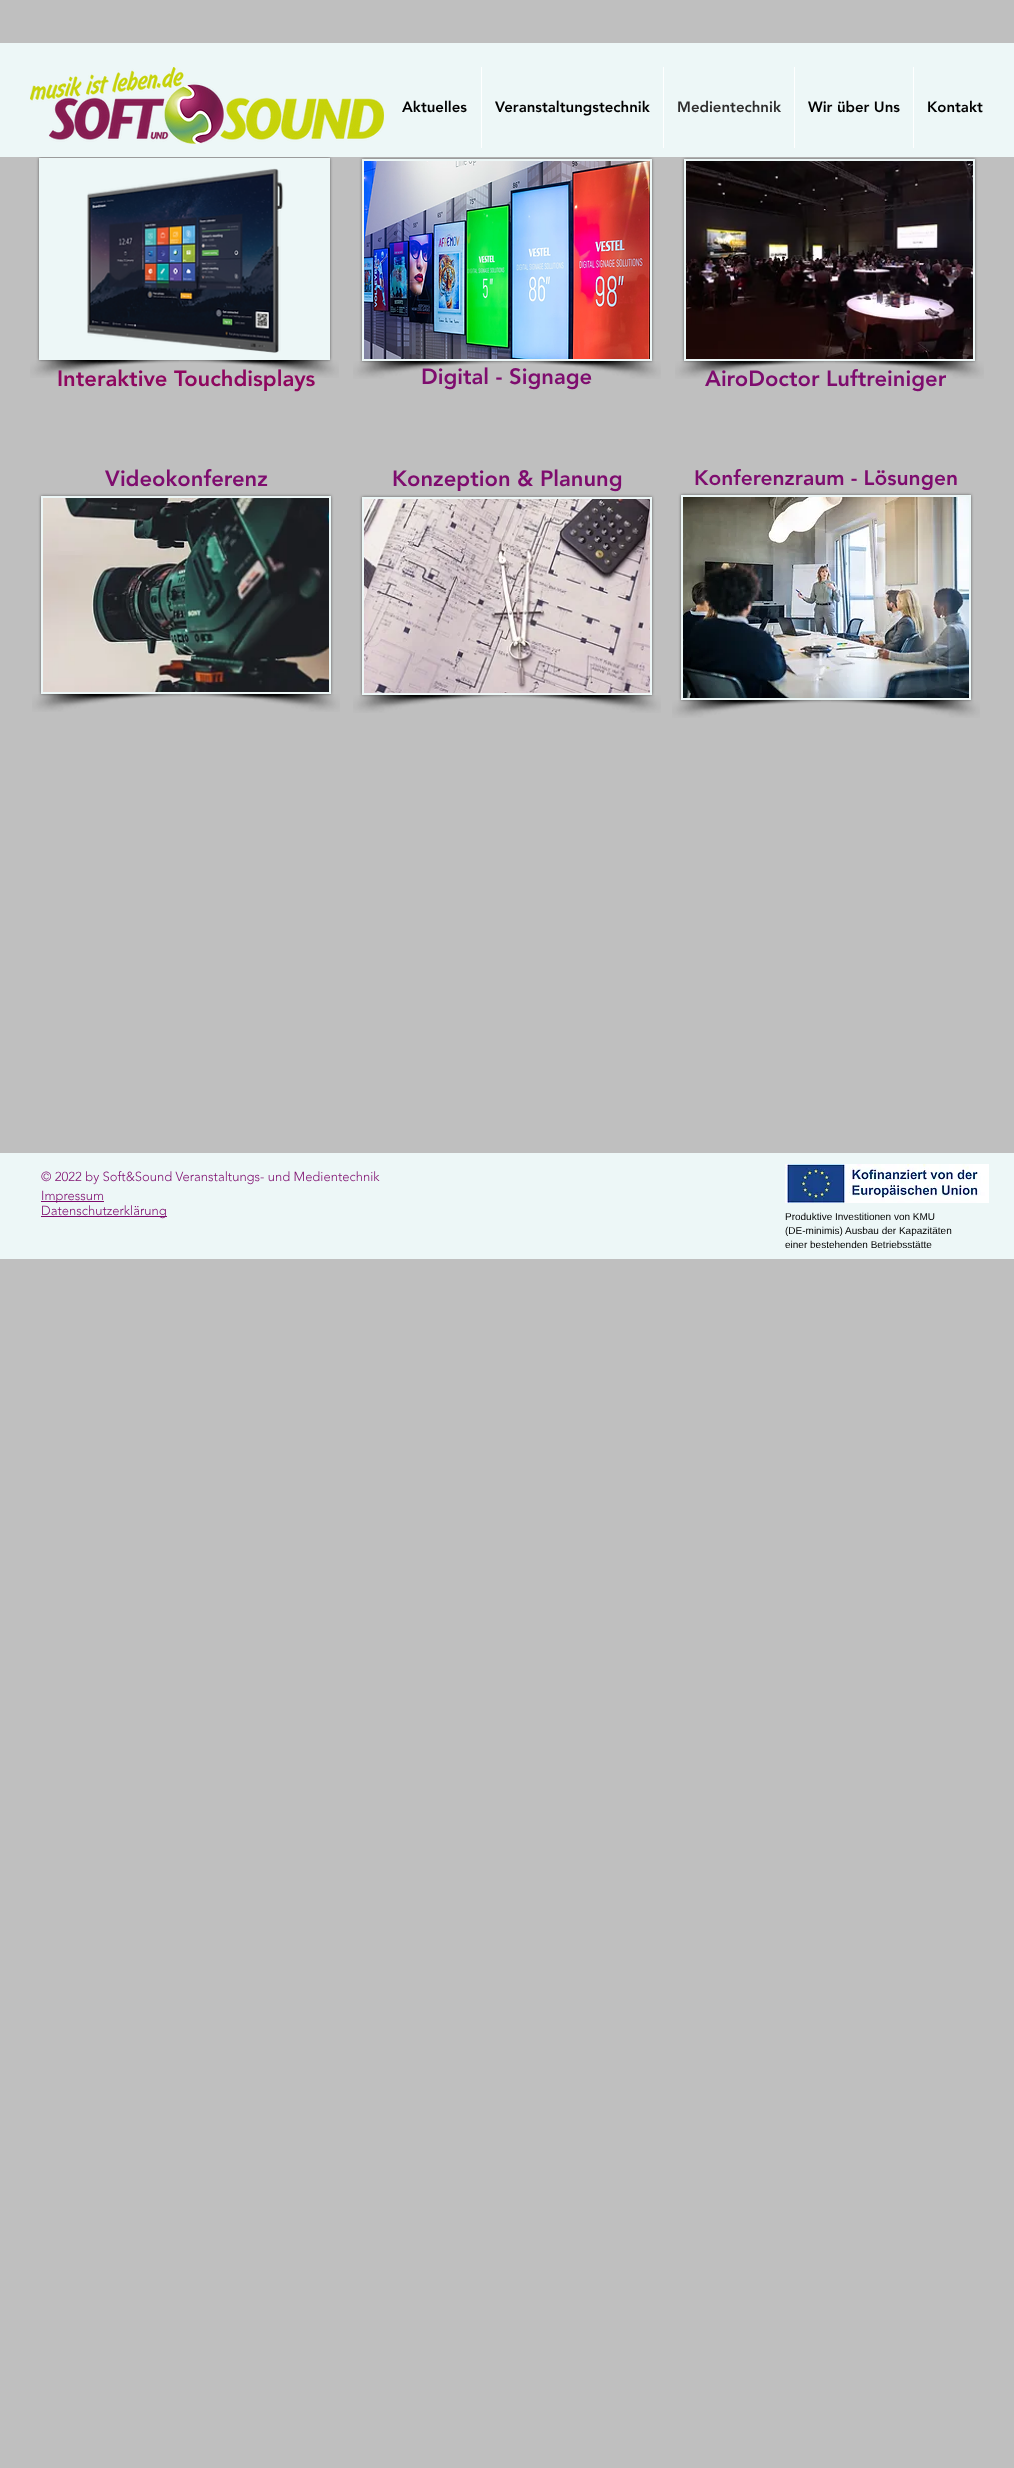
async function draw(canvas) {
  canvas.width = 1014
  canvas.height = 2468
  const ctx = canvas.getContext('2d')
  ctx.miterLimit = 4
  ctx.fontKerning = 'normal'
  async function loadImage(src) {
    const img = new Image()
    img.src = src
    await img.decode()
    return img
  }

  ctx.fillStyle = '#bfbfbf'
  ctx.fillRect(0, 0, 1014, 2468)
  ctx.fillStyle = '#00000080'
  ctx.filter = 'blur(1.5px)'
  ctx.beginPath()
  ctx.rect(39, 158, 291, 202)
  ctx.fill()
  ctx.filter = 'none'
  ctx.filter = 'blur(1.5px)'
  ctx.beginPath()
  ctx.rect(362, 159, 290, 202)
  ctx.fill()
  ctx.filter = 'none'
  ctx.filter = 'blur(1.5px)'
  ctx.beginPath()
  ctx.rect(684, 159, 291, 202)
  ctx.fill()
  ctx.filter = 'none'
  ctx.fillStyle = '#edf7f7'
  ctx.fillRect(0, 43, 1014, 114)
  ctx.drawImage(await loadImage('image0.png'), 30, 67, 354, 77)
  ctx.font = '900 15px "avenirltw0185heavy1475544"'
  ctx.fillStyle = '#000'
  ctx.fillText('Aktuelles', 402, 112)
  ctx.fillStyle = '#fff'
  ctx.fillRect(481, 67, 1, 81)
  ctx.fillStyle = '#000'
  ctx.fillText('Veranstaltungstechnik', 495, 112)
  ctx.fillStyle = '#fff'
  ctx.fillRect(663, 67, 1, 81)
  ctx.fillStyle = '#2f2e2e'
  ctx.fillText('Medientechnik', 677, 112)
  ctx.fillStyle = '#fff'
  ctx.fillRect(794, 67, 1, 81)
  ctx.fillStyle = '#000'
  ctx.fillText('Wir über Uns', 808, 112)
  ctx.fillStyle = '#fff'
  ctx.fillRect(913, 67, 1, 81)
  ctx.fillStyle = '#000'
  ctx.fillText('Kontakt', 927, 112)
  ctx.fillStyle = '#edf7f7'
  ctx.fillRect(39, 158, 291, 202)
  ctx.drawImage(await loadImage('image1.png'), 87, 168, 197, 185)
  ctx.drawImage(await loadImage('image2.png'), 30, 360, 149, 18)
  ctx.drawImage(await loadImage('image3.png'), 190, 360, 149, 18)
  ctx.fillRect(362, 159, 290, 202)
  ctx.drawImage(await loadImage('image4.png'), 364, 161, 286, 198)
  ctx.drawImage(await loadImage('image2.png'), 353, 361, 149, 18)
  ctx.drawImage(await loadImage('image3.png'), 512, 361, 149, 18)
  ctx.fillRect(684, 159, 291, 202)
  ctx.drawImage(await loadImage('image5.png'), 686, 161, 287, 198)
  ctx.drawImage(await loadImage('image2.png'), 675, 361, 149, 18)
  ctx.drawImage(await loadImage('image3.png'), 835, 361, 149, 18)
  ctx.font = '900 22px "avenirltw0185heavy1475544"'
  ctx.fillStyle = '#8e075f'
  ctx.fillText('Interaktive Touchdisplays', 57, 386)
  ctx.fillStyle = '#7e0c6e'
  ctx.fillText('Digital - Signage', 421, 384)
  ctx.fillText('AiroDoctor Luftreiniger', 705, 386)
  ctx.fillText('Videokonferenz', 105, 486)
  ctx.fillText('Konzeption & Planung', 392, 486)
  ctx.font = '900 21px "avenirltw0185heavy1475544"'
  ctx.fillText('Konferenzraum - Lösungen', 694, 485)
  ctx.fillStyle = '#00000080'
  ctx.filter = 'blur(1.5px)'
  ctx.beginPath()
  ctx.rect(41, 496, 290, 198)
  ctx.fill()
  ctx.filter = 'none'
  ctx.fillStyle = '#edf7f7'
  ctx.fillRect(41, 496, 290, 198)
  ctx.drawImage(await loadImage('image6.png'), 43, 498, 286, 194)
  ctx.drawImage(await loadImage('image2.png'), 32, 694, 149, 18)
  ctx.drawImage(await loadImage('image3.png'), 191, 694, 149, 18)
  ctx.fillStyle = '#00000080'
  ctx.filter = 'blur(1.5px)'
  ctx.beginPath()
  ctx.rect(362, 497, 290, 198)
  ctx.fill()
  ctx.filter = 'none'
  ctx.fillStyle = '#edf7f7'
  ctx.fillRect(362, 497, 290, 198)
  ctx.drawImage(await loadImage('image7.png'), 364, 499, 286, 194)
  ctx.drawImage(await loadImage('image2.png'), 353, 695, 149, 18)
  ctx.drawImage(await loadImage('image3.png'), 512, 695, 149, 18)
  ctx.fillStyle = '#00000080'
  ctx.filter = 'blur(1.5px)'
  ctx.beginPath()
  ctx.rect(681, 495, 290, 205)
  ctx.fill()
  ctx.filter = 'none'
  ctx.fillStyle = '#edf7f7'
  ctx.fillRect(681, 495, 290, 205)
  ctx.drawImage(await loadImage('image8.png'), 683, 497, 286, 201)
  ctx.drawImage(await loadImage('image2.png'), 672, 700, 149, 18)
  ctx.drawImage(await loadImage('image3.png'), 831, 700, 149, 18)
  ctx.fillRect(0, 1153, 1014, 106)
  ctx.font = '300 13px "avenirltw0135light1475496"'
  ctx.fillStyle = '#7e0c6e'
  ctx.fillText('© 2022 by Soft&Sound Veranstaltungs- und Medientechnik', 41, 1181)
  ctx.drawImage(await loadImage('image9.png'), 785, 1164, 204, 39)
  ctx.fillRect(41, 1201, 63, 1)
  ctx.fillText('Impressum', 41, 1200)
  ctx.fillRect(41, 1216, 126, 1)
  ctx.fillText('Datenschutzerklärung', 41, 1215)
  ctx.font = '10px Liberation Sans'
  ctx.fillStyle = '#000'
  ctx.fillText('Produktive Investitionen von KMU', 785, 1220)
  ctx.fillText('(DE-minimis) Ausbau der Kapazitäten', 785, 1234)
  ctx.fillText('einer bestehenden Betriebsstätte', 785, 1248)
}

draw(document.querySelector('canvas'))
